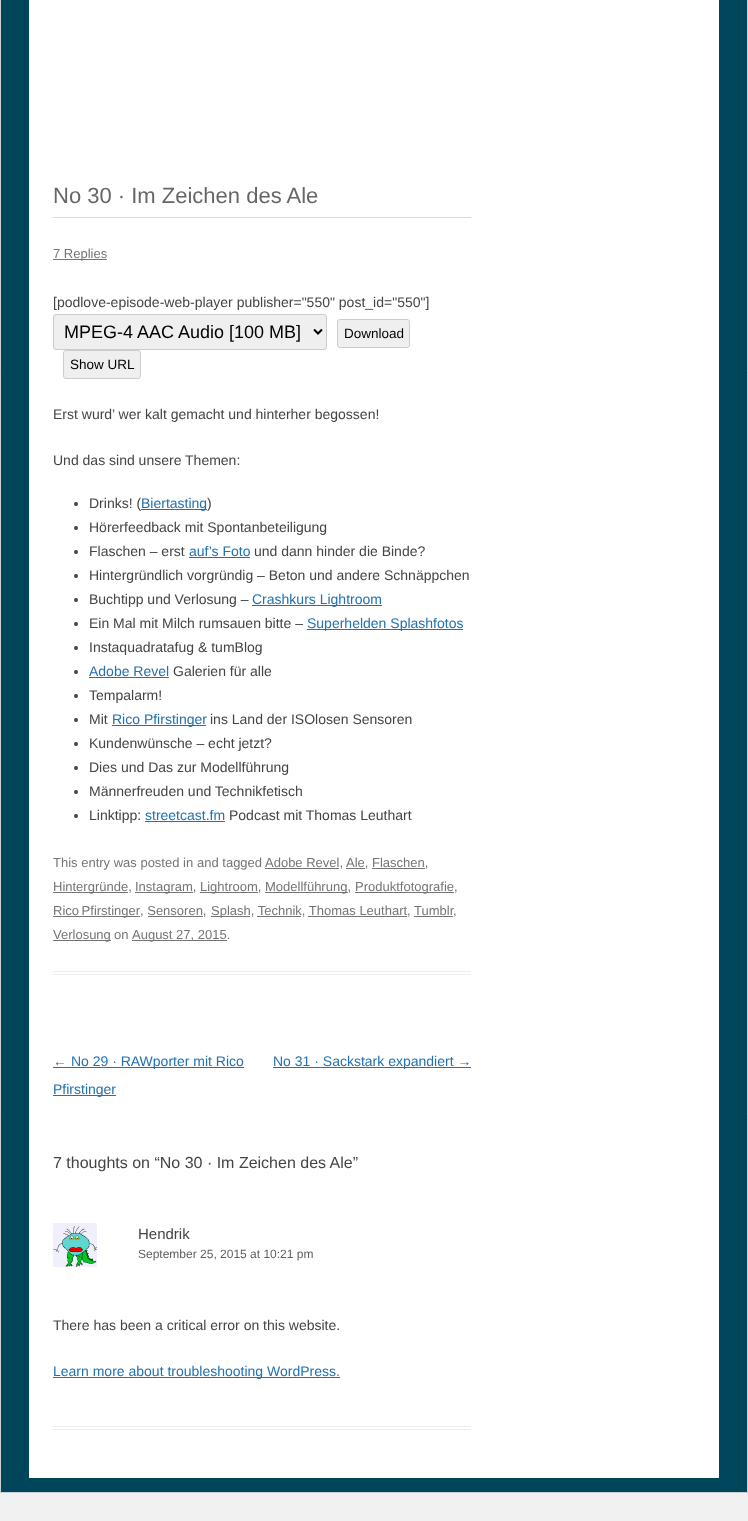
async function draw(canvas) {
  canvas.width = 748
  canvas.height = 1521
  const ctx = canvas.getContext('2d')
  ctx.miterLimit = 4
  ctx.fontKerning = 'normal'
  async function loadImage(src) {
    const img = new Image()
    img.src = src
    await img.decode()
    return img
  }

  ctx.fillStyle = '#f1f1f1'
  ctx.fillRect(0, 0, 748, 1521)
  ctx.fillStyle = '#00465b'
  ctx.beginPath()
  ctx.rect(0.5, -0.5, 747, 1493)
  ctx.fill()
  ctx.strokeStyle = '#ccd0d4'
  ctx.stroke()
  ctx.fillStyle = '#fff'
  ctx.fillRect(29, 0, 690, 1478)
  ctx.fillStyle = '#ededed'
  ctx.fillRect(53, 971, 418, 1)
  ctx.fillRect(53, 974, 418, 1)
  ctx.fillStyle = '#dadada'
  ctx.fillRect(53, 217, 418, 1)
  ctx.font = '22px Liberation Sans'
  ctx.fillStyle = '#666'
  ctx.fillText('No 30 · Im Zeichen des Ale', 53, 203)
  ctx.fillStyle = '#757575'
  ctx.fillRect(53, 259, 54, 1)
  ctx.font = '13px Liberation Sans'
  ctx.fillText('7 Replies', 53, 258)
  ctx.font = '14px Liberation Sans'
  ctx.fillStyle = '#444'
  ctx.fillText('[podlove-episode-web-player publisher="550" post_id="550"]', 53, 307)
  ctx.fillStyle = '#efefef'
  ctx.beginPath()
  ctx.roundRect(53.5, 314.5, 273, 35, 2.5)
  ctx.fill()
  ctx.strokeStyle = '#ccc'
  ctx.stroke()
  ctx.beginPath()
  ctx.moveTo(314, 329.5)
  ctx.lineTo(318, 333.5)
  ctx.lineTo(322, 329.5)
  ctx.strokeStyle = '#000'
  ctx.lineWidth = 2
  ctx.stroke()
  ctx.font = '18px Liberation Sans'
  ctx.fillStyle = '#000'
  ctx.fillText('MPEG-4 AAC Audio [100 MB]', 64, 338)
  ctx.fillStyle = '#efefef'
  ctx.beginPath()
  ctx.roundRect(337.5, 319.5, 72, 28, 2.5)
  ctx.fill()
  ctx.strokeStyle = '#ccc'
  ctx.lineWidth = 1
  ctx.stroke()
  ctx.font = '13.5px Liberation Sans'
  ctx.fillStyle = '#000'
  ctx.fillText('Download', 344, 338)
  ctx.fillStyle = '#efefef'
  ctx.beginPath()
  ctx.roundRect(63.5, 350.5, 77, 28, 2.5)
  ctx.fill()
  ctx.stroke()
  ctx.fillStyle = '#000'
  ctx.fillText('Show URL', 70, 369)
  ctx.font = '14px Liberation Sans'
  ctx.fillStyle = '#444'
  ctx.fillText('Erst wurd’ wer kalt gemacht und hinterher begossen!', 53, 419)
  ctx.fillText('Und das sind unsere Themen:', 53, 465)
  ctx.beginPath()
  ctx.arc(76, 504, 2, 0, 2 * Math.PI)
  ctx.fill()
  ctx.fillText('Drinks! (', 89, 508)
  ctx.fillStyle = '#2271b1'
  ctx.fillRect(141, 509, 66, 1)
  ctx.fillText('Biertasting', 141, 508)
  ctx.fillStyle = '#444'
  ctx.fillText(')', 207, 508)
  ctx.beginPath()
  ctx.arc(76, 528, 2, 0, 2 * Math.PI)
  ctx.fill()
  ctx.fillText('Hörerfeedback mit Spontanbeteiligung', 89, 532)
  ctx.beginPath()
  ctx.arc(76, 552, 2, 0, 2 * Math.PI)
  ctx.fill()
  ctx.fillText('Flaschen – erst', 89, 556)
  ctx.fillStyle = '#2271b1'
  ctx.fillText('auf’s Foto', 189, 556)
  ctx.fillRect(189, 557, 61, 1)
  ctx.fillStyle = '#444'
  ctx.fillText('und dann hinder die Binde?', 254, 556)
  ctx.beginPath()
  ctx.arc(76, 576, 2, 0, 2 * Math.PI)
  ctx.fill()
  ctx.fillText('Hintergründlich vorgründig – Beton und andere Schnäppchen', 89, 580)
  ctx.beginPath()
  ctx.arc(76, 600, 2, 0, 2 * Math.PI)
  ctx.fill()
  ctx.fillText('Buchtipp und Verlosung –', 89, 604)
  ctx.fillStyle = '#2271b1'
  ctx.fillRect(252, 605, 130, 1)
  ctx.fillText('Crashkurs Lightroom', 252, 604)
  ctx.fillStyle = '#444'
  ctx.beginPath()
  ctx.arc(76, 624, 2, 0, 2 * Math.PI)
  ctx.fill()
  ctx.fillText('Ein Mal mit Milch rumsauen bitte –', 89, 628)
  ctx.fillStyle = '#2271b1'
  ctx.fillRect(307, 629, 156, 1)
  ctx.fillText('Superhelden Splashfotos', 307, 628)
  ctx.fillStyle = '#444'
  ctx.beginPath()
  ctx.arc(76, 648, 2, 0, 2 * Math.PI)
  ctx.fill()
  ctx.fillText('Instaquadratafug & tumBlog', 89, 652)
  ctx.beginPath()
  ctx.arc(76, 672, 2, 0, 2 * Math.PI)
  ctx.fill()
  ctx.fillStyle = '#2271b1'
  ctx.fillText('Adobe Revel', 89, 676)
  ctx.fillRect(89, 677, 80, 1)
  ctx.fillStyle = '#444'
  ctx.fillText('Galerien für alle', 173, 676)
  ctx.beginPath()
  ctx.arc(76, 696, 2, 0, 2 * Math.PI)
  ctx.fill()
  ctx.fillText('Tempalarm!', 89, 700)
  ctx.beginPath()
  ctx.arc(76, 720, 2, 0, 2 * Math.PI)
  ctx.fill()
  ctx.fillText('Mit', 89, 724)
  ctx.fillStyle = '#2271b1'
  ctx.fillRect(112, 725, 94, 1)
  ctx.fillText('Rico Pfirstinger', 112, 724)
  ctx.fillStyle = '#444'
  ctx.fillText('ins Land der ISOlosen Sensoren', 210, 724)
  ctx.beginPath()
  ctx.arc(76, 744, 2, 0, 2 * Math.PI)
  ctx.fill()
  ctx.fillText('Kundenwünsche – echt jetzt?', 89, 748)
  ctx.beginPath()
  ctx.arc(76, 768, 2, 0, 2 * Math.PI)
  ctx.fill()
  ctx.fillText('Dies und Das zur Modellführung', 89, 772)
  ctx.beginPath()
  ctx.arc(76, 792, 2, 0, 2 * Math.PI)
  ctx.fill()
  ctx.fillText('Männerfreuden und Technikfetisch', 89, 796)
  ctx.beginPath()
  ctx.arc(76, 816, 2, 0, 2 * Math.PI)
  ctx.fill()
  ctx.fillText('Linktipp:', 89, 820)
  ctx.fillStyle = '#2271b1'
  ctx.fillText('streetcast.fm', 145, 820)
  ctx.fillRect(145, 821, 80, 1)
  ctx.fillStyle = '#444'
  ctx.fillText('Podcast mit Thomas Leuthart', 229, 820)
  ctx.font = '13px Liberation Sans'
  ctx.fillStyle = '#757575'
  ctx.fillText('This entry was posted in', 53, 867)
  ctx.fillText('and tagged', 197, 867)
  ctx.fillRect(265, 868, 74, 1)
  ctx.fillText('Adobe Revel,', 265, 867)
  ctx.fillRect(346, 868, 19, 1)
  ctx.fillText('Ale, Flaschen,', 346, 867)
  ctx.fillRect(372, 868, 53, 1)
  ctx.fillRect(53, 892, 75, 1)
  ctx.fillText('Hintergründe,', 53, 891)
  ctx.fillRect(135, 892, 58, 1)
  ctx.fillText('Instagram,', 135, 891)
  ctx.fillRect(200, 892, 58, 1)
  ctx.fillText('Lightroom,', 200, 891)
  ctx.fillRect(265, 892, 83, 1)
  ctx.fillText('Modellführung,', 265, 891)
  ctx.fillRect(355, 892, 99, 1)
  ctx.fillText('Produktfotografie,', 355, 891)
  ctx.fillRect(53, 916, 87, 1)
  ctx.wordSpacing = '-1px'
  ctx.fillText('Rico Pfirstinger', 53, 915)
  ctx.wordSpacing = '0px'
  ctx.fillText(', Sensoren,', 140, 915)
  ctx.fillRect(211, 916, 39, 1)
  ctx.fillText('Splash, Technik, Thomas Leuthart, Tumblr', 211, 915)
  ctx.fillText(',', 453, 915)
  ctx.fillRect(148, 916, 55, 1)
  ctx.fillRect(257, 916, 44, 1)
  ctx.fillRect(308, 916, 99, 1)
  ctx.fillRect(414, 916, 39, 1)
  ctx.fillRect(53, 940, 58, 1)
  ctx.fillText('Verlosung', 53, 939)
  ctx.fillText('on', 114, 939)
  ctx.fillRect(132, 940, 95, 1)
  ctx.fillText('August 27, 2015.', 132, 939)
  ctx.fillStyle = '#2271b1'
  ctx.fillRect(53, 1067, 191, 1)
  ctx.font = '14px Liberation Sans'
  ctx.fillText('← No 29 · RAWporter mit Rico', 53, 1066)
  ctx.fillRect(53, 1095, 63, 1)
  ctx.fillText('Pfirstinger', 53, 1094)
  ctx.fillRect(273, 1067, 198, 1)
  ctx.fillText('No 31 · Sackstark expandiert →', 273, 1066)
  ctx.font = '16px Liberation Sans'
  ctx.fillStyle = '#444'
  ctx.fillText('7 thoughts on “No 30 · Im Zeichen des Ale”', 53, 1168)
  ctx.fillStyle = '#ededed'
  ctx.fillRect(53, 1426, 418, 1)
  ctx.fillRect(53, 1429, 418, 1)
  ctx.drawImage(await loadImage('image0.png'), 53, 1223, 44, 44)
  ctx.font = '15px Liberation Sans'
  ctx.fillStyle = '#444'
  ctx.fillText('Hendrik', 138, 1239)
  ctx.font = '12px Liberation Sans'
  ctx.fillStyle = '#5e5e5e'
  ctx.fillText('September 25, 2015 at 10:21 pm', 138, 1258)
  ctx.font = '14px Liberation Sans'
  ctx.fillStyle = '#444'
  ctx.fillText('There has been a critical error on this website.', 53, 1330)
  ctx.fillStyle = '#2271b1'
  ctx.fillRect(53, 1377, 287, 1)
  ctx.fillText('Learn more about troubleshooting WordPress.', 53, 1376)
}

draw(document.querySelector('canvas'))
